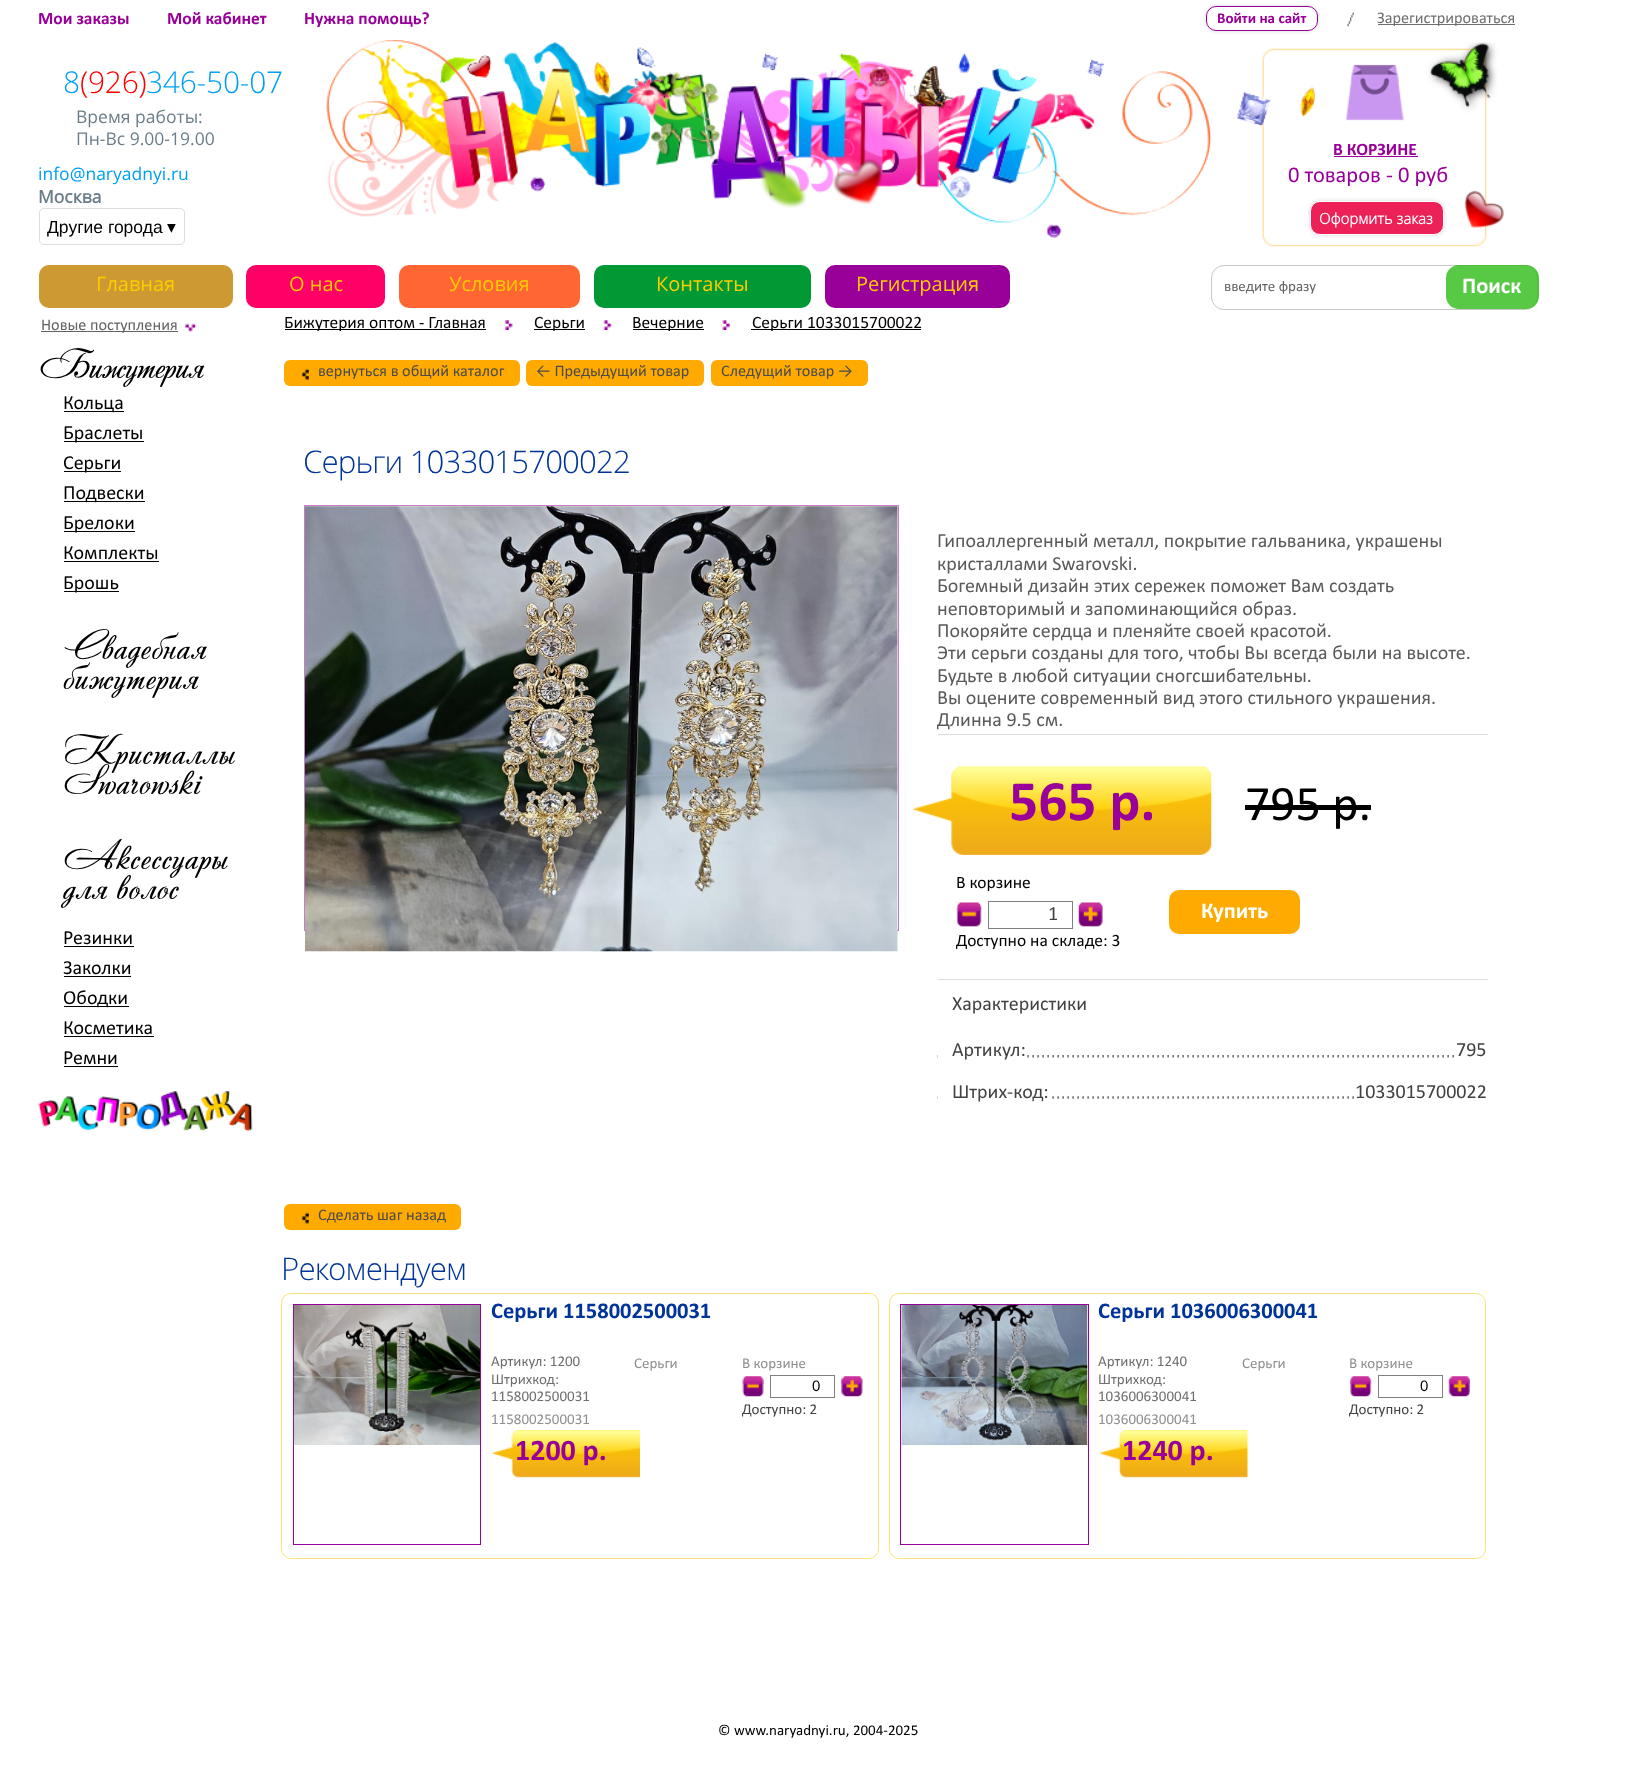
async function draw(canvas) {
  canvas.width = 1628
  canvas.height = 1770
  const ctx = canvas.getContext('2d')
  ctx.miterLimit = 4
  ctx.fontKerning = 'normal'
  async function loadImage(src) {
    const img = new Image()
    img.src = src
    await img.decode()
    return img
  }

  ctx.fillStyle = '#fff'
  ctx.fillRect(0, 0, 1628, 1770)
  ctx.font = 'bold 17.5px Calibri'
  ctx.fillStyle = '#909'
  ctx.fillText('Мои заказы', 38, 24)
  ctx.fillText('Мой кабинет', 167, 24)
  ctx.fillText('Нужна помощь?', 304, 24)
  ctx.drawImage(await loadImage('image0.png'), 326, 40, 886, 198)
  ctx.drawImage(await loadImage('image1.png'), 1236, 42, 268, 205)
  ctx.save()
  ctx.beginPath()
  ctx.moveTo(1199, 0)
  ctx.lineTo(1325, 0)
  ctx.lineTo(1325, 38)
  ctx.lineTo(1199, 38)
  ctx.closePath()
  ctx.moveTo(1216, 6)
  ctx.lineTo(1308, 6)
  ctx.bezierCurveTo(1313.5, 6, 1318, 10.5, 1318, 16)
  ctx.lineTo(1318, 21)
  ctx.bezierCurveTo(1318, 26.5, 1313.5, 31, 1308, 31)
  ctx.lineTo(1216, 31)
  ctx.bezierCurveTo(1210.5, 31, 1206, 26.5, 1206, 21)
  ctx.lineTo(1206, 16)
  ctx.bezierCurveTo(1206, 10.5, 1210.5, 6, 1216, 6)
  ctx.closePath()
  ctx.clip('evenodd')
  ctx.fillStyle = '#00000029'
  ctx.filter = 'blur(2px)'
  ctx.beginPath()
  ctx.roundRect(1206, 6, 112, 25, 10)
  ctx.fill()
  ctx.filter = 'none'
  ctx.restore()
  ctx.beginPath()
  ctx.roundRect(1206.5, 6.5, 111, 24, 9.5)
  ctx.strokeStyle = '#909'
  ctx.stroke()
  ctx.font = 'bold 15px Calibri'
  ctx.fillText('Войти на сайт', 1217, 23)
  ctx.drawImage(await loadImage('image2.png'), 1347, 12, 7, 15)
  ctx.fillStyle = '#706e6f'
  ctx.fillRect(1378, 24, 137, 1)
  ctx.font = '16.25px Calibri'
  ctx.fillText('Зарегистрироваться', 1377, 23)
  ctx.font = 'bold 17.5px Calibri'
  ctx.fillStyle = '#909'
  ctx.fillText('В КОРЗИНЕ', 1333, 155)
  ctx.fillRect(1334, 156, 84, 1)
  ctx.font = '22.5px Calibri'
  ctx.fillText('0 товаров - 0 руб', 1288, 182)
  ctx.fillStyle = '#00000029'
  ctx.filter = 'blur(2px)'
  ctx.beginPath()
  ctx.roundRect(1310, 201, 134, 34, 10)
  ctx.fill()
  ctx.filter = 'none'
  ctx.fillStyle = '#ec2158'
  ctx.beginPath()
  ctx.roundRect(1310.5, 201.5, 133, 33, 9.5)
  ctx.fill()
  ctx.strokeStyle = '#fff'
  ctx.stroke()
  ctx.font = 'bold 15px Open Sans'
  ctx.fillStyle = '#fff'
  ctx.fillText('Оформить заказ', 1319, 224)
  ctx.letterSpacing = '-0.25px'
  ctx.font = '300 30px Open Sans'
  ctx.fillStyle = '#00a0f4'
  ctx.fillText('8', 63, 93)
  ctx.fillStyle = '#f00'
  ctx.fillText('(926)', 80, 93)
  ctx.fillStyle = '#00a0f4'
  ctx.fillText('346-50-07', 146, 93)
  ctx.letterSpacing = '0px'
  ctx.font = '17.5px Open Sans'
  ctx.fillStyle = '#6a7d88'
  ctx.fillText('Время работы:', 76, 123)
  ctx.fillText('Пн-Вс 9.00-19.00', 76, 145)
  ctx.fillStyle = '#00a0f4'
  ctx.fillText('info@naryadnyi.ru', 38, 180)
  ctx.font = 'bold 17.5px "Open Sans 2"'
  ctx.fillStyle = '#6a7d88'
  ctx.fillText('Москва', 38, 203)
  ctx.beginPath()
  ctx.roundRect(39.5, 208.5, 145, 36, 4.5)
  ctx.strokeStyle = '#ddd'
  ctx.stroke()
  ctx.font = '17.5px Liberation Sans'
  ctx.fillStyle = '#010101'
  ctx.fillText('Другие города', 47, 233)
  ctx.font = '17.5px DejaVu Sans'
  ctx.fillText('▾', 167, 233)
  ctx.fillStyle = '#c93'
  ctx.beginPath()
  ctx.roundRect(39, 265, 194, 43, 10)
  ctx.fill()
  ctx.font = '20px Open Sans'
  ctx.fillStyle = '#fc0'
  ctx.fillText('Главная', 96, 291)
  ctx.fillStyle = '#f06'
  ctx.beginPath()
  ctx.roundRect(246, 265, 139, 43, 10)
  ctx.fill()
  ctx.fillStyle = '#fc0'
  ctx.fillText('О нас', 289, 291)
  ctx.fillStyle = '#f63'
  ctx.beginPath()
  ctx.roundRect(399, 265, 181, 43, 10)
  ctx.fill()
  ctx.fillStyle = '#fc0'
  ctx.fillText('Условия', 449, 291)
  ctx.fillStyle = '#093'
  ctx.beginPath()
  ctx.roundRect(594, 265, 217, 43, 10)
  ctx.fill()
  ctx.fillStyle = '#fc0'
  ctx.fillText('Контакты', 656, 291)
  ctx.fillStyle = '#909'
  ctx.beginPath()
  ctx.roundRect(825, 265, 185, 43, 10)
  ctx.fill()
  ctx.fillStyle = '#fc0'
  ctx.fillText('Регистрация', 856, 291)
  ctx.beginPath()
  ctx.roundRect(1211.5, 265.5, 326, 44, 12.5)
  ctx.strokeStyle = '#c8c8c7'
  ctx.stroke()
  ctx.font = '15px Calibri'
  ctx.fillStyle = '#646363'
  ctx.fillText('введите фразу', 1224, 291)
  ctx.fillStyle = '#2dbb15cc'
  ctx.beginPath()
  ctx.roundRect(1446, 265, 93, 44, 13)
  ctx.fill()
  ctx.font = 'bold 22.5px Calibri'
  ctx.fillStyle = '#fff'
  ctx.fillText('Поиск', 1462, 293)
  ctx.drawImage(await loadImage('image3.png'), 185, 323, 12, 9)
  ctx.fillStyle = '#646363'
  ctx.fillRect(41, 331, 137, 1)
  ctx.font = '16.25px Calibri'
  ctx.fillText('Новые поступления', 41, 330)
  ctx.letterSpacing = '-1.25px'
  ctx.font = '40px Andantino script'
  ctx.fillStyle = '#010101'
  ctx.fillText('Бижутерия', 38, 378)
  ctx.fillRect(64, 411, 60, 1)
  ctx.letterSpacing = '0px'
  ctx.font = '20px Calibri'
  ctx.fillText('Кольца', 63, 409)
  ctx.fillRect(64, 441, 80, 1)
  ctx.fillText('Браслеты', 63, 439)
  ctx.fillRect(64, 471, 57, 1)
  ctx.fillText('Серьги', 63, 469)
  ctx.fillRect(64, 501, 81, 1)
  ctx.fillText('Подвески', 63, 499)
  ctx.fillRect(64, 531, 71, 1)
  ctx.fillText('Брелоки', 63, 529)
  ctx.fillText('Комплекты', 63, 559)
  ctx.fillRect(64, 561, 95, 1)
  ctx.fillRect(64, 591, 55, 1)
  ctx.fillText('Брошь', 63, 589)
  ctx.font = '40px Andantino script'
  ctx.fillText('Свадебная', 63, 659)
  ctx.fillText('бижутерия', 63, 689)
  ctx.fillText('Кристаллы', 63, 764)
  ctx.fillText('Swarowski', 63, 794)
  ctx.fillText('Аксессуары', 63, 869)
  ctx.fillText('для волос', 63, 899)
  ctx.font = '20px Calibri'
  ctx.fillText('Резинки', 63, 944)
  ctx.fillRect(64, 946, 70, 1)
  ctx.fillText('Заколки', 63, 974)
  ctx.fillRect(64, 976, 67, 1)
  ctx.fillRect(64, 1006, 65, 1)
  ctx.fillText('Ободки', 63, 1004)
  ctx.fillText('Косметика', 63, 1034)
  ctx.fillRect(64, 1036, 90, 1)
  ctx.fillText('Ремни', 63, 1064)
  ctx.fillRect(64, 1066, 54, 1)
  ctx.drawImage(await loadImage('image4.png'), 38, 1091, 215, 41)
  ctx.fillRect(285, 329, 201, 1)
  ctx.font = '17.5px Calibri'
  ctx.fillText('Бижутерия оптом - Главная', 284, 328)
  ctx.drawImage(await loadImage('image5.png'), 505, 320, 8, 10)
  ctx.fillRect(534, 329, 51, 1)
  ctx.fillText('Серьги', 534, 328)
  ctx.drawImage(await loadImage('image6.png'), 603, 320, 9, 10)
  ctx.fillRect(633, 329, 71, 1)
  ctx.fillText('Вечерние', 632, 328)
  ctx.drawImage(await loadImage('image7.png'), 722, 320, 8, 10)
  ctx.fillRect(751, 329, 170, 1)
  ctx.fillText('Серьги 1033015700022', 752, 328)
  ctx.fillStyle = '#fa0'
  ctx.beginPath()
  ctx.roundRect(284, 360, 236, 26, 6)
  ctx.fill()
  ctx.drawImage(await loadImage('image8.png'), 301, 368, 8, 12)
  ctx.font = '16.25px Calibri'
  ctx.fillStyle = '#4b4b4b'
  ctx.fillText('вернуться в общий каталог', 318, 376)
  ctx.fillStyle = '#fa0'
  ctx.beginPath()
  ctx.roundRect(526, 360, 178, 26, 6)
  ctx.fill()
  ctx.fillStyle = '#4b4b4b'
  ctx.fillText('← Предыдущий товар', 536, 376)
  ctx.fillStyle = '#fa0'
  ctx.beginPath()
  ctx.roundRect(711, 360, 157, 26, 6)
  ctx.fill()
  ctx.fillStyle = '#4b4b4b'
  ctx.fillText('Следущий товар →', 721, 376)
  ctx.letterSpacing = '-0.9px'
  ctx.font = '300 31.25px Open Sans'
  ctx.fillStyle = '#013499'
  ctx.fillText('Серьги 1033015700022', 303, 473)
  ctx.strokeStyle = '#ca7cc7'
  ctx.strokeRect(304.5, 505.5, 594, 425)
  ctx.drawImage(await loadImage('image9.png'), 305, 506, 593, 446)
  ctx.fillStyle = '#dededd'
  ctx.fillRect(938, 734, 550, 1)
  ctx.letterSpacing = '0px'
  ctx.font = '20px Calibri'
  ctx.fillStyle = '#5b5a5a'
  ctx.fillText('Гипоаллергенный металл, покрытие гальваника, украшены', 937, 547)
  ctx.fillText('кристаллами Swarovski.', 937, 570)
  ctx.fillText('Богемный дизайн этих сережек поможет Вам создать', 937, 592)
  ctx.fillText('неповторимый и запоминающийся образ.', 937, 615)
  ctx.fillText('Покоряйте сердца и пленяйте своей красотой.', 937, 637)
  ctx.fillText('Эти серьги созданы для того, чтобы Вы всегда были на высоте.', 937, 659)
  ctx.fillText('Будьте в любой ситуации сногсшибательны.', 937, 682)
  ctx.fillText('Вы оцените современный вид этого стильного украшения.', 937, 704)
  ctx.fillText('Длинна 9.5 см.', 937, 726)
  ctx.drawImage(await loadImage('image10.png'), 912, 766, 300, 89)
  ctx.font = 'bold 57.5px Calibri'
  ctx.fillStyle = '#909'
  ctx.fillText('565 р.', 1009, 820)
  ctx.font = '50px Calibri'
  ctx.fillStyle = '#010101'
  ctx.fillText('795 р.', 1245, 820)
  ctx.fillStyle = '#000'
  ctx.fillRect(1245, 805, 126, 5)
  ctx.fillStyle = '#dededd'
  ctx.fillRect(938, 979, 550, 1)
  ctx.font = '17.5px Calibri'
  ctx.fillStyle = '#010101'
  ctx.fillText('В корзине', 956, 888)
  ctx.drawImage(await loadImage('image11.png'), 956, 902, 26, 25)
  ctx.strokeStyle = '#808080'
  ctx.strokeRect(988.5, 901.5, 84, 27)
  ctx.font = '20px Calibri'
  ctx.fillStyle = '#434243'
  ctx.fillText('1', 1048, 920)
  ctx.drawImage(await loadImage('image12.png'), 1078, 902, 25, 25)
  ctx.font = '17.5px Calibri'
  ctx.fillStyle = '#010101'
  ctx.fillText('Доступно на складе: 3', 956, 946)
  ctx.fillStyle = '#fa0'
  ctx.beginPath()
  ctx.roundRect(1169, 890, 131, 44, 10)
  ctx.fill()
  ctx.font = 'bold 22.5px Calibri'
  ctx.fillStyle = '#fff'
  ctx.fillText('Купить', 1201, 918)
  ctx.font = '20px Calibri'
  ctx.fillStyle = '#434243'
  ctx.fillText('Характеристики', 952, 1010)
  ctx.drawImage(await loadImage('image13.png'), 937, 1055, 517, 3)
  ctx.fillStyle = '#fff'
  ctx.fillRect(938, 1055, 86, 3)
  ctx.fillStyle = '#434243'
  ctx.fillText('Артикул:', 952, 1056)
  ctx.fillText('795', 1456, 1056)
  ctx.drawImage(await loadImage('image14.png'), 937, 1096, 417, 3)
  ctx.fillStyle = '#fff'
  ctx.fillRect(938, 1096, 111, 3)
  ctx.fillStyle = '#434243'
  ctx.fillText('Штрих-код:', 952, 1098)
  ctx.fillText('1033015700022', 1355, 1098)
  ctx.fillStyle = '#fa0'
  ctx.beginPath()
  ctx.roundRect(284, 1204, 177, 26, 6)
  ctx.fill()
  ctx.drawImage(await loadImage('image15.png'), 301, 1212, 8, 12)
  ctx.font = '16.25px Calibri'
  ctx.fillStyle = '#4b4b4b'
  ctx.fillText('Сделать шаг назад', 318, 1220)
  ctx.letterSpacing = '-0.9px'
  ctx.font = '300 31.25px Open Sans'
  ctx.fillStyle = '#013499'
  ctx.fillText('Рекомендуем', 281, 1280)
  ctx.beginPath()
  ctx.roundRect(281.5, 1293.5, 597, 265, 9.5)
  ctx.strokeStyle = '#fae17d'
  ctx.stroke()
  ctx.strokeStyle = '#909'
  ctx.strokeRect(293.5, 1304.5, 187, 240)
  ctx.drawImage(await loadImage('image16.png'), 293, 1305, 187, 140)
  ctx.letterSpacing = '0px'
  ctx.font = 'bold 22.5px Calibri'
  ctx.fillText('Серьги 1158002500031', 491, 1318)
  ctx.font = '15px Calibri'
  ctx.fillStyle = '#706e6f'
  ctx.fillText('Артикул: 1200', 491, 1366)
  ctx.fillText('Штрихкод:', 491, 1384)
  ctx.fillText('1158002500031', 491, 1401)
  ctx.fillStyle = '#908f8f'
  ctx.fillText('Серьги', 634, 1368)
  ctx.fillText('1158002500031', 491, 1424)
  ctx.drawImage(await loadImage('image17.png'), 491, 1430, 149, 48)
  ctx.font = 'bold 30px Calibri'
  ctx.fillStyle = '#909'
  ctx.fillText('1200 р.', 515, 1460)
  ctx.font = '15px Calibri'
  ctx.fillStyle = '#908f8f'
  ctx.fillText('В корзине', 742, 1368)
  ctx.drawImage(await loadImage('image18.png'), 742, 1376, 22, 21)
  ctx.strokeStyle = '#808080'
  ctx.strokeRect(770.5, 1375.5, 64, 22)
  ctx.font = '15px Liberation Sans'
  ctx.fillStyle = '#010101'
  ctx.fillText('0', 812, 1391)
  ctx.drawImage(await loadImage('image19.png'), 841, 1376, 22, 21)
  ctx.font = '15px Calibri'
  ctx.fillStyle = '#434243'
  ctx.fillText('Доступно: 2', 742, 1414)
  ctx.beginPath()
  ctx.roundRect(889.5, 1293.5, 596, 265, 9.5)
  ctx.strokeStyle = '#fae17d'
  ctx.stroke()
  ctx.strokeStyle = '#909'
  ctx.strokeRect(900.5, 1304.5, 188, 240)
  ctx.drawImage(await loadImage('image20.png'), 901, 1305, 187, 140)
  ctx.font = 'bold 22.5px Calibri'
  ctx.fillStyle = '#013499'
  ctx.fillText('Серьги 1036006300041', 1098, 1318)
  ctx.font = '15px Calibri'
  ctx.fillStyle = '#706e6f'
  ctx.fillText('Артикул: 1240', 1098, 1366)
  ctx.fillText('Штрихкод:', 1098, 1384)
  ctx.fillText('1036006300041', 1098, 1401)
  ctx.fillStyle = '#908f8f'
  ctx.fillText('Серьги', 1242, 1368)
  ctx.fillText('1036006300041', 1098, 1424)
  ctx.drawImage(await loadImage('image21.png'), 1099, 1430, 149, 48)
  ctx.font = 'bold 30px Calibri'
  ctx.fillStyle = '#909'
  ctx.fillText('1240 р.', 1122, 1460)
  ctx.font = '15px Calibri'
  ctx.fillStyle = '#908f8f'
  ctx.fillText('В корзине', 1349, 1368)
  ctx.drawImage(await loadImage('image22.png'), 1350, 1376, 22, 21)
  ctx.strokeStyle = '#808080'
  ctx.strokeRect(1378.5, 1375.5, 64, 22)
  ctx.font = '15px Liberation Sans'
  ctx.fillStyle = '#010101'
  ctx.fillText('0', 1420, 1391)
  ctx.drawImage(await loadImage('image23.png'), 1448, 1376, 22, 21)
  ctx.font = '15px Calibri'
  ctx.fillStyle = '#434243'
  ctx.fillText('Доступно: 2', 1349, 1414)
  ctx.fillStyle = '#010101'
  ctx.fillText('© www.naryadnyi.ru, 2004-2025', 718, 1735)
}

draw(document.querySelector('canvas'))
